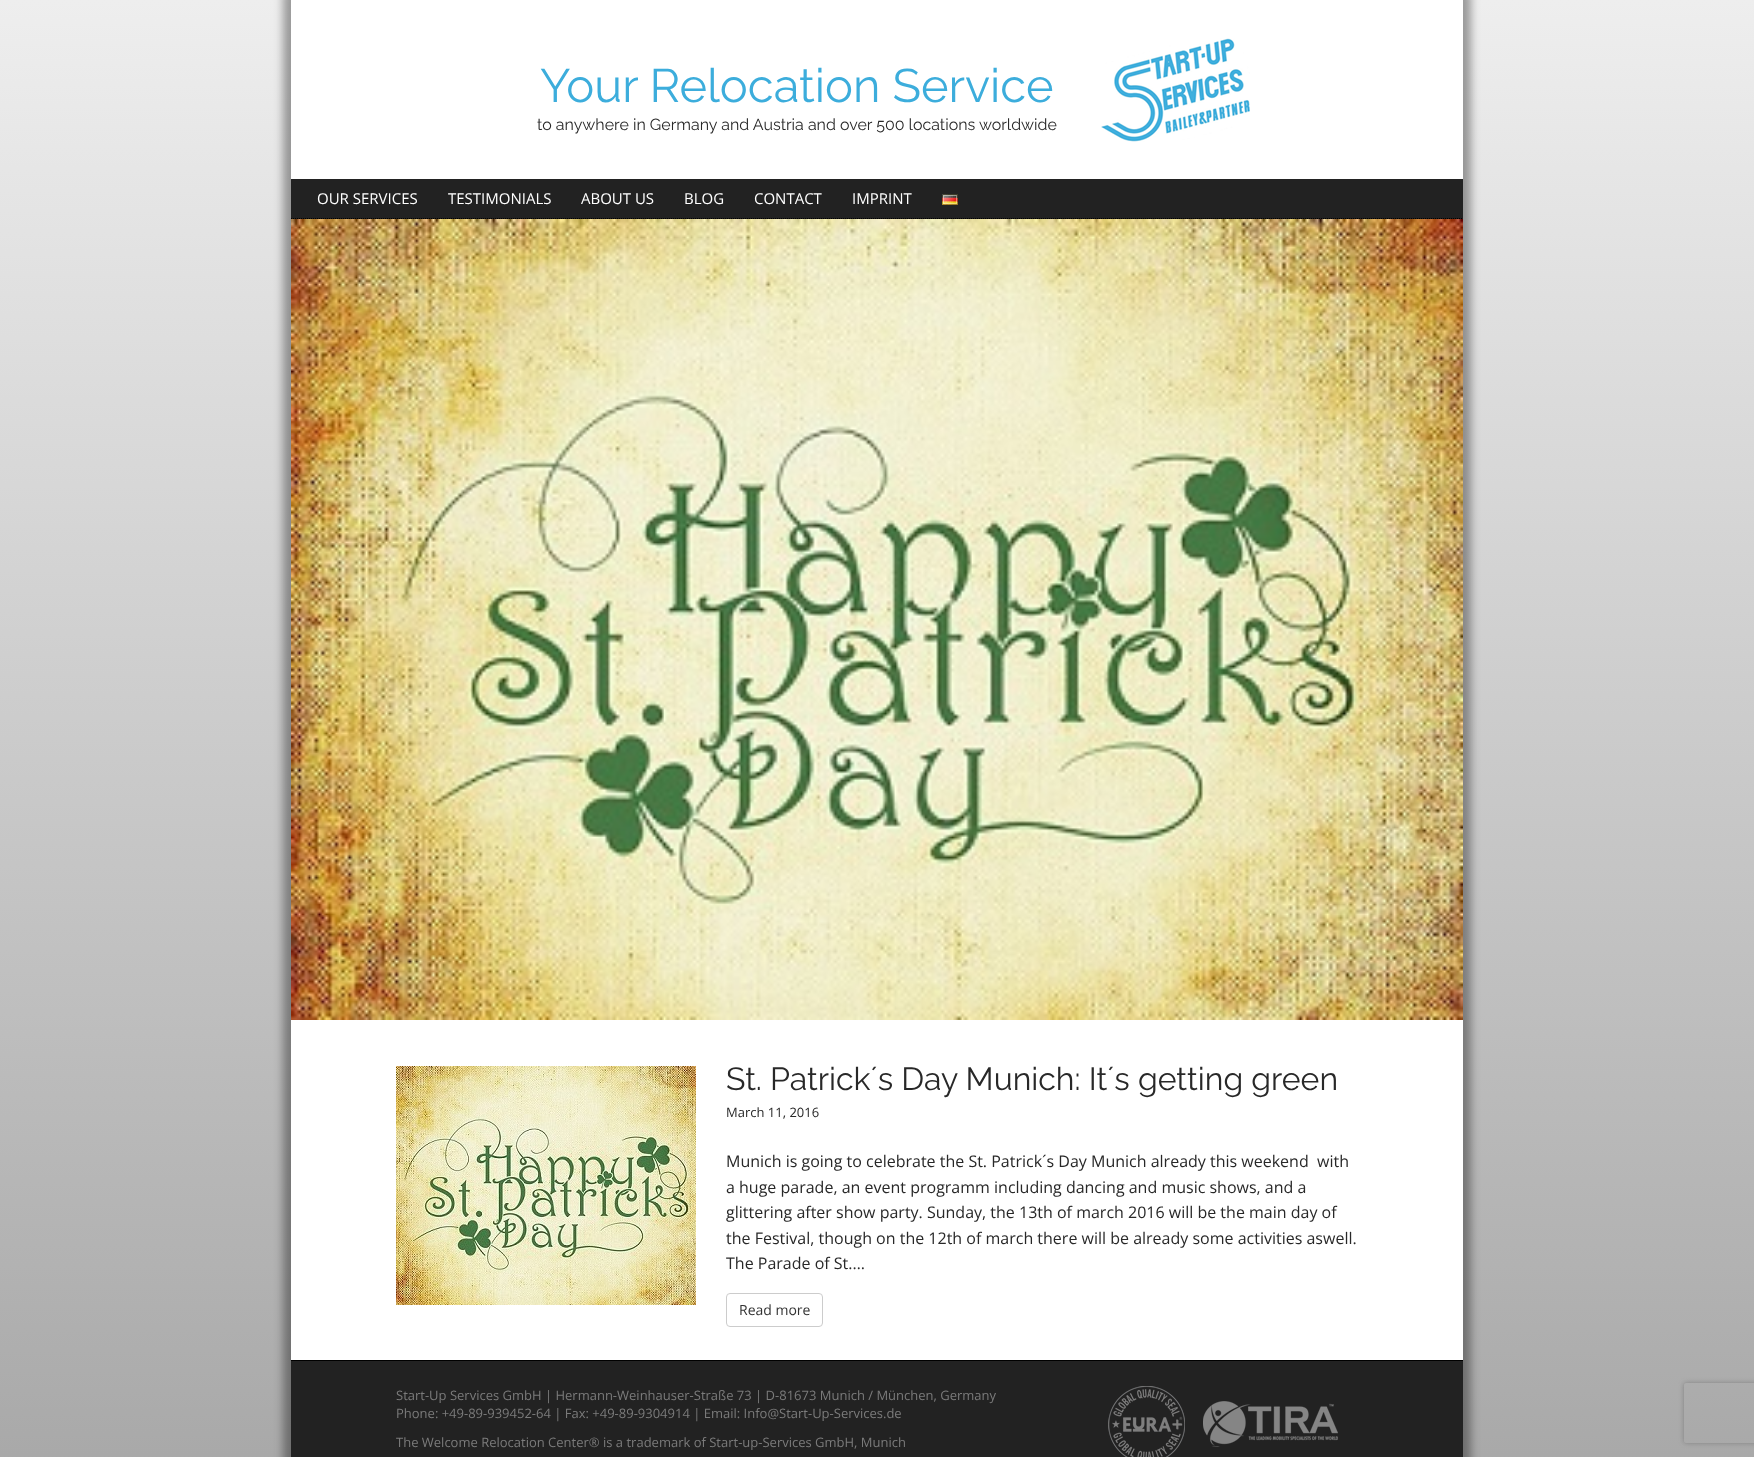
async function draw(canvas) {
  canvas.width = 1754
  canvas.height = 1457
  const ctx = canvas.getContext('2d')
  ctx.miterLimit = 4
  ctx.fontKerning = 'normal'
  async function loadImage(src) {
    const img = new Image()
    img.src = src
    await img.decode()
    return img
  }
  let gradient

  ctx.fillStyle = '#fff'
  ctx.fillRect(0, 0, 1754, 1457)
  gradient = ctx.createLinearGradient(877, 0, 877, 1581)
  gradient.addColorStop(0, '#eee')
  gradient.addColorStop(1, '#a3a3a3')
  ctx.fillStyle = gradient
  ctx.fillRect(0, 0, 1754, 1457)
  ctx.fillStyle = '#00000059'
  ctx.filter = 'blur(4px)'
  ctx.beginPath()
  ctx.rect(283, -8, 1188, 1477)
  ctx.fill()
  ctx.filter = 'none'
  ctx.fillStyle = '#fff'
  ctx.fillRect(291, 0, 1172, 1360)
  ctx.font = '100 47px Raleway'
  ctx.fillStyle = '#3caddc'
  ctx.fillText('Your Relocation Service', 540, 102)
  ctx.font = '100 16px Raleway'
  ctx.fillStyle = '#282828'
  ctx.fillText('to anywhere in Germany and Austria and over 500 locations worldwide', 537, 130)
  ctx.drawImage(await loadImage('image0.png'), 1101, 38, 149, 104)
  ctx.fillStyle = '#222'
  ctx.fillRect(291, 179, 1172, 40)
  ctx.beginPath()
  ctx.moveTo(291, 218.5)
  ctx.lineTo(1463, 218.5)
  ctx.strokeStyle = '#000'
  ctx.setLineDash([1, 1])
  ctx.stroke()
  ctx.font = '15px Open Sans'
  ctx.fillStyle = '#fff'
  ctx.fillText('OUR SERVICES', 317, 204)
  ctx.fillText('TESTIMONIALS', 448, 204)
  ctx.fillText('ABOUT US', 581, 204)
  ctx.fillText('BLOG', 684, 204)
  ctx.fillText('CONTACT', 754, 204)
  ctx.fillText('IMPRINT', 852, 204)
  ctx.drawImage(await loadImage('image1.png'), 942, 194, 16, 11)
  ctx.drawImage(await loadImage('image2.png'), 291, 219, 1172, 801)
  ctx.drawImage(await loadImage('image3.png'), 396, 1066, 300, 239)
  ctx.font = '100 32px Raleway'
  ctx.fillStyle = '#282828'
  ctx.fillText('St. Patrick´s Day Munich: It´s getting green', 726, 1090)
  ctx.font = '13px Open Sans'
  ctx.fillText('March 11, 2016', 726, 1117)
  ctx.font = '16px Open Sans'
  ctx.fillText('Munich is going to celebrate the St. Patrick´s Day Munich already this weekend  with', 726, 1167)
  ctx.fillText('a huge parade, an event programm including dancing and music shows, and a', 726, 1193)
  ctx.fillText('glittering after show party. Sunday, the 13th of march 2016 will be the main day of', 726, 1218)
  ctx.fillText('the Festival, though on the 12th of march there will be already some activities aswell.', 726, 1244)
  ctx.fillText('The Parade of St.…', 726, 1269)
  ctx.beginPath()
  ctx.roundRect(726.5, 1293.5, 96, 33, 3.5)
  ctx.strokeStyle = '#ccc'
  ctx.setLineDash([])
  ctx.stroke()
  ctx.font = '14px Open Sans'
  ctx.fillStyle = '#333'
  ctx.fillText('Read more', 739, 1315)
  ctx.fillStyle = '#222'
  ctx.fillRect(291, 1361, 1172, 96)
  ctx.fillStyle = '#000'
  ctx.fillRect(291, 1360, 1172, 1)
  ctx.font = '13px Open Sans'
  ctx.fillStyle = '#7b7b7b'
  ctx.fillText('Start-Up Services GmbH | Hermann-Weinhauser-Straße 73 | D-81673 Munich / München, Germany', 396, 1400)
  ctx.fillText('Phone: +49-89-939452-64 | Fax: +49-89-9304914 | Email: Info@Start-Up-Services.de', 396, 1418)
  ctx.fillText('The Welcome Relocation Center® is a trademark of Start-up-Services GmbH, Munich', 396, 1447)
  ctx.drawImage(await loadImage('image4.png'), 1108, 1386, 77, 71)
  ctx.drawImage(await loadImage('image5.png'), 1203, 1401, 135, 46)
  ctx.save()
  ctx.beginPath()
  ctx.moveTo(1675, 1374)
  ctx.lineTo(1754, 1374)
  ctx.lineTo(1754, 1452)
  ctx.lineTo(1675, 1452)
  ctx.closePath()
  ctx.moveTo(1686, 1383)
  ctx.lineTo(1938, 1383)
  ctx.bezierCurveTo(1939, 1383, 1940, 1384, 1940, 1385)
  ctx.lineTo(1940, 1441)
  ctx.bezierCurveTo(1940, 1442, 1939, 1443, 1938, 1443)
  ctx.lineTo(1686, 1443)
  ctx.bezierCurveTo(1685, 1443, 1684, 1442, 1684, 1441)
  ctx.lineTo(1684, 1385)
  ctx.bezierCurveTo(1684, 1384, 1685, 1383, 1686, 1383)
  ctx.closePath()
  ctx.clip('evenodd')
  ctx.fillStyle = '#808080'
  ctx.filter = 'blur(2.5px)'
  ctx.beginPath()
  ctx.roundRect(1684, 1383, 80, 60, 2)
  ctx.fill()
  ctx.filter = 'none'
  ctx.restore()
}

draw(document.querySelector('canvas'))
